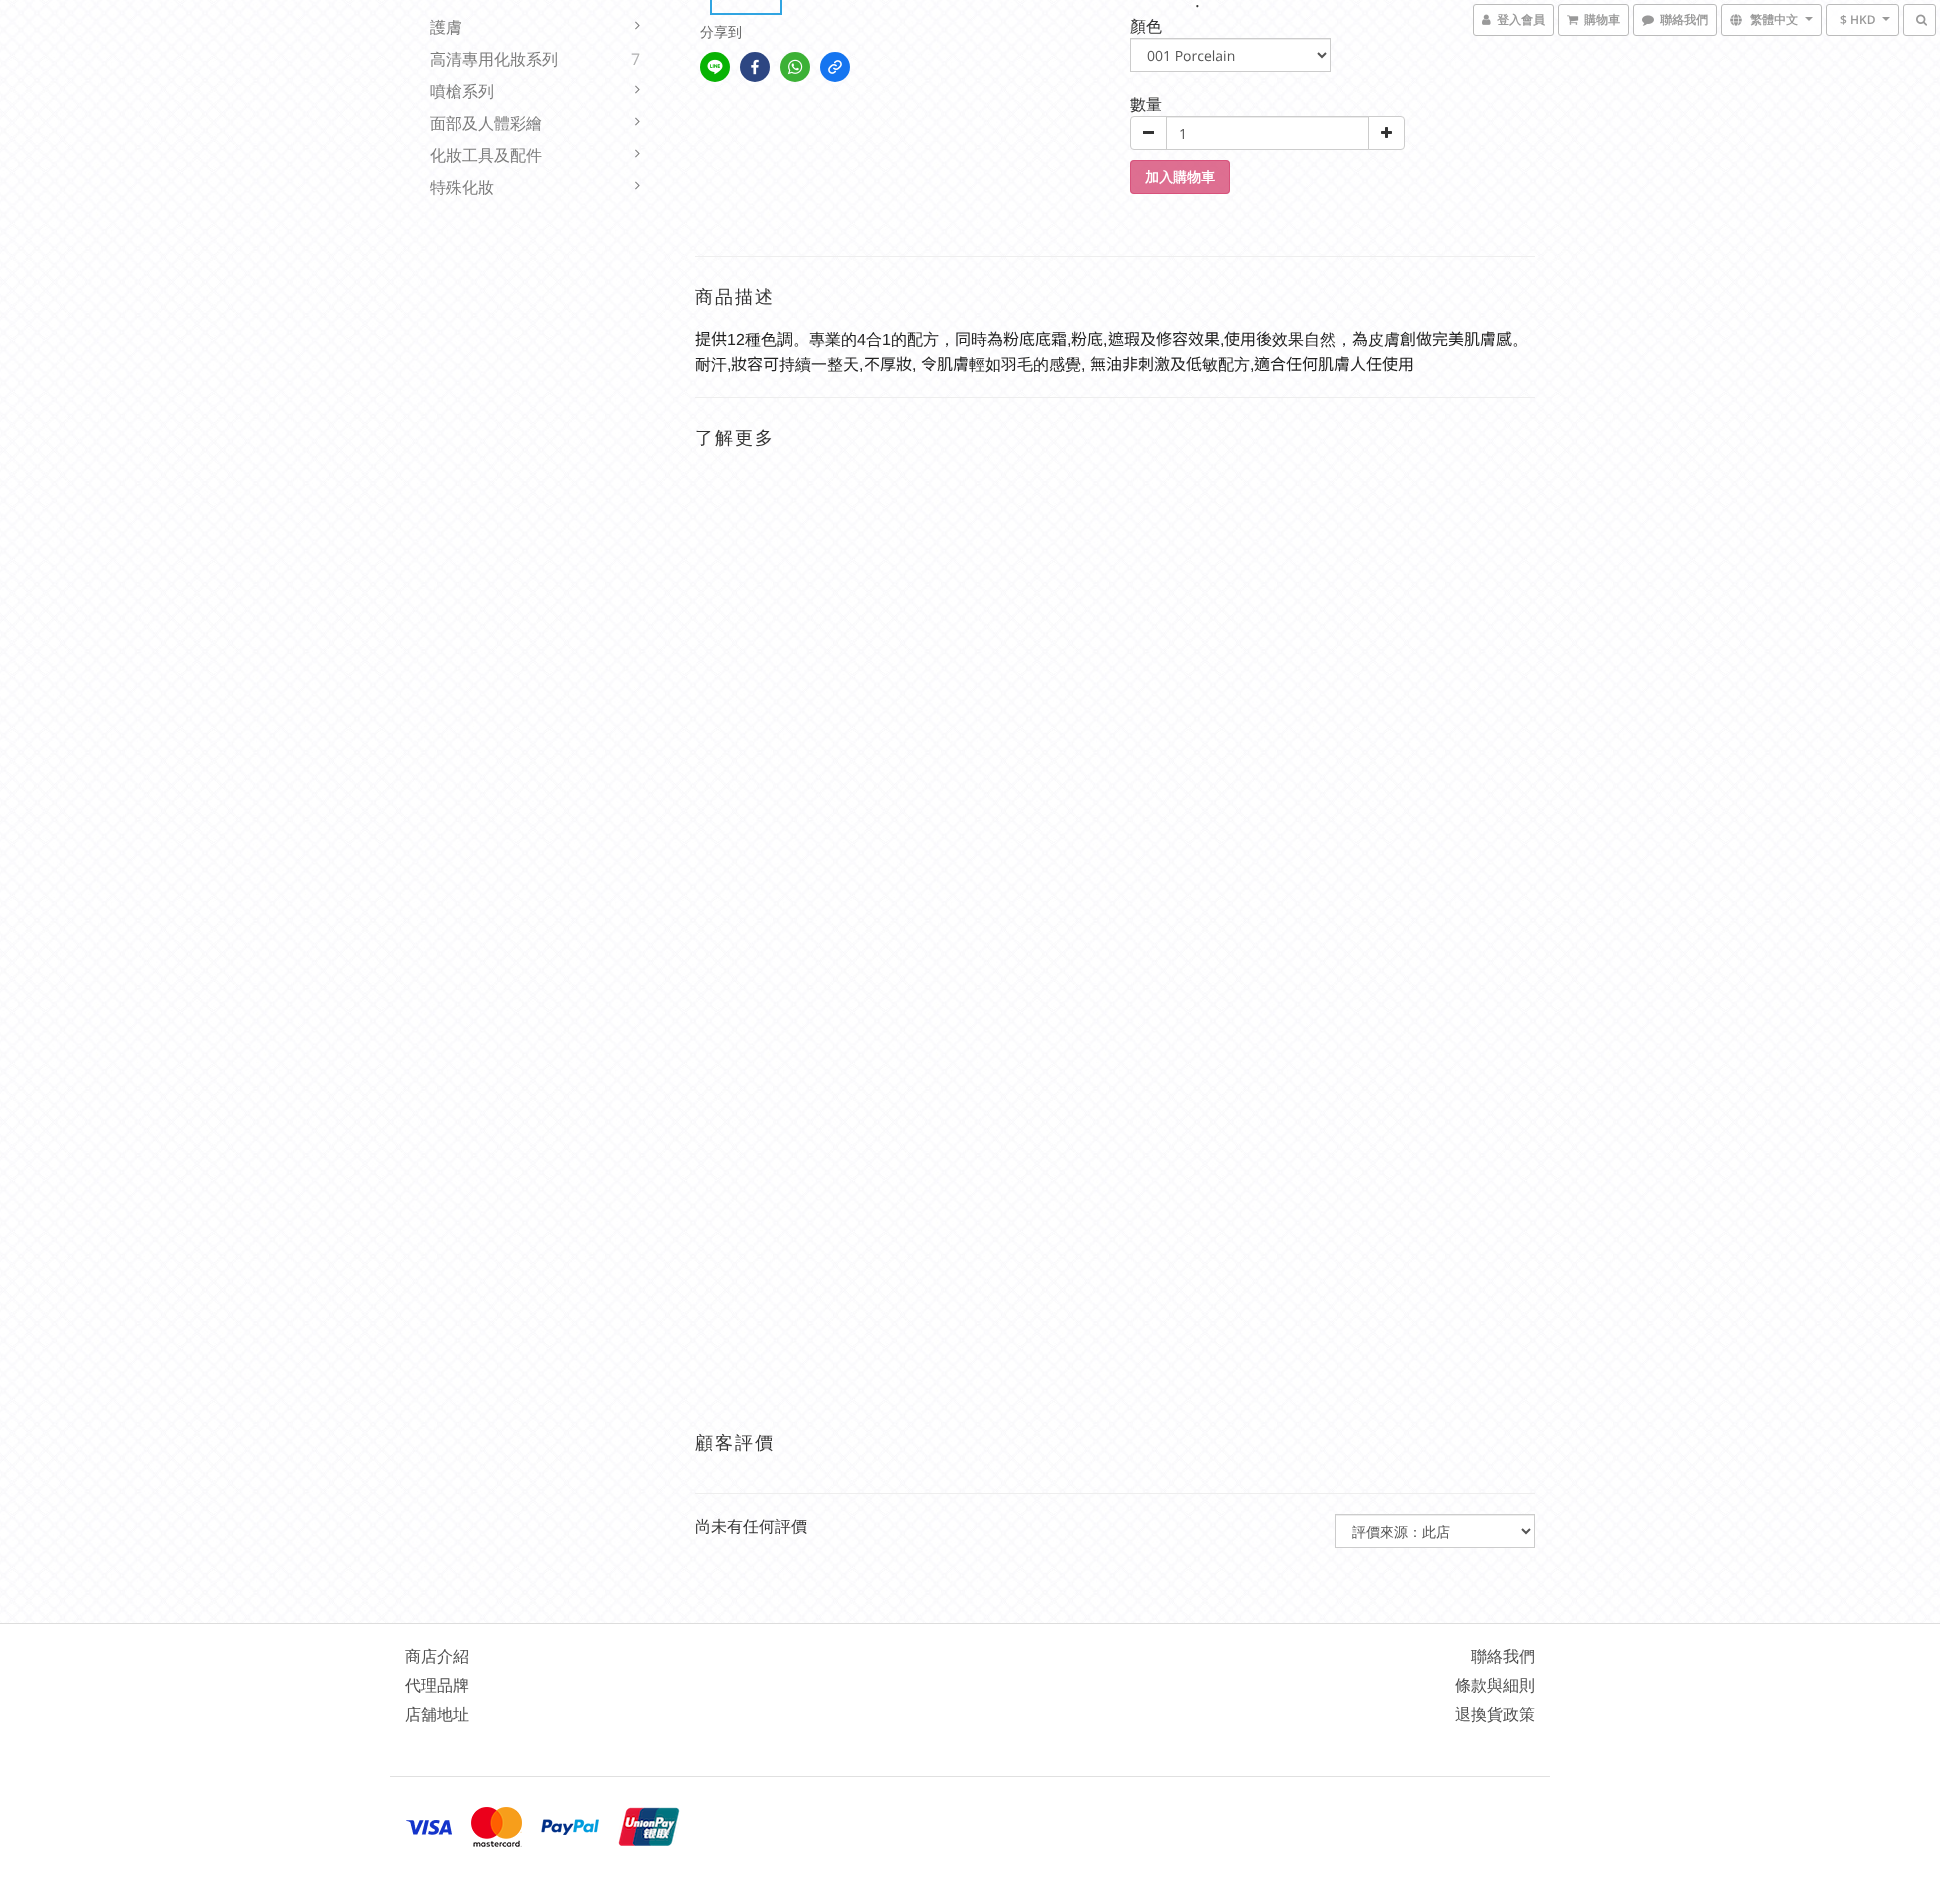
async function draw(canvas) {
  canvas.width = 1940
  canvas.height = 1891
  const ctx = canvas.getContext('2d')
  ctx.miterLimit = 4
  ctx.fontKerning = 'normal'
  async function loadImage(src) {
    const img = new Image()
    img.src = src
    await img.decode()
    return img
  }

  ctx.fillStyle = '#fff'
  ctx.fillRect(0, 0, 1940, 1891)
  ctx.drawImage(await loadImage('image0.png'), 0, 0, 1940, 1623)
  ctx.font = '500 16px WenQuanYi Zen Hei'
  ctx.fillStyle = '#7c7c7c'
  ctx.fillText('護膚', 430, 33)
  ctx.drawImage(await loadImage('image1.png'), 635, 21, 5, 9)
  ctx.fillText('高清專用化妝系列', 430, 65)
  ctx.font = '16px Open Sans'
  ctx.fillStyle = '#b1b1b2'
  ctx.fillText('7', 631, 65)
  ctx.font = '500 16px WenQuanYi Zen Hei'
  ctx.fillStyle = '#7c7c7c'
  ctx.fillText('噴槍系列', 430, 97)
  ctx.drawImage(await loadImage('image2.png'), 635, 85, 5, 9)
  ctx.fillText('面部及人體彩繪', 430, 129)
  ctx.drawImage(await loadImage('image3.png'), 635, 117, 5, 9)
  ctx.fillText('化妝工具及配件', 430, 161)
  ctx.drawImage(await loadImage('image4.png'), 635, 149, 5, 9)
  ctx.fillText('特殊化妝', 430, 193)
  ctx.drawImage(await loadImage('image5.png'), 635, 181, 5, 9)
  ctx.strokeStyle = '#30a4e1'
  ctx.lineWidth = 2
  ctx.strokeRect(711, -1, 70, 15)
  ctx.font = '500 14px WenQuanYi Zen Hei'
  ctx.fillStyle = '#666'
  ctx.fillText('分享到', 700, 37)
  ctx.fillStyle = '#09b305'
  ctx.beginPath()
  ctx.arc(715, 67, 15, 0, 2 * Math.PI)
  ctx.fill()
  ctx.drawImage(await loadImage('image6.png'), 707, 59, 16, 16)
  ctx.fillStyle = '#2d4682'
  ctx.beginPath()
  ctx.arc(755, 67, 15, 0, 2 * Math.PI)
  ctx.fill()
  ctx.drawImage(await loadImage('image7.png'), 751, 59, 8, 16)
  ctx.fillStyle = '#3cb136'
  ctx.beginPath()
  ctx.arc(795, 67, 15, 0, 2 * Math.PI)
  ctx.fill()
  ctx.drawImage(await loadImage('image8.png'), 787, 59, 16, 16)
  ctx.fillStyle = '#1575f0'
  ctx.beginPath()
  ctx.arc(835, 67, 15, 0, 2 * Math.PI)
  ctx.fill()
  ctx.drawImage(await loadImage('image9.png'), 828, 60, 14, 14)
  ctx.font = '18px Open Sans'
  ctx.fillStyle = '#333'
  ctx.fillText('.', 1195, 7)
  ctx.font = '500 16px WenQuanYi Zen Hei'
  ctx.fillText('顏色', 1130, 32)
  ctx.fillStyle = '#fff'
  ctx.fillRect(1131, 40, 199, 31)
  ctx.fillStyle = '#ececec'
  ctx.fillRect(1131, 39, 199, 1)
  ctx.strokeStyle = '#ccc'
  ctx.lineWidth = 1
  ctx.strokeRect(1130.5, 38.5, 200, 33)
  ctx.beginPath()
  ctx.moveTo(1318, 53)
  ctx.lineTo(1322, 57)
  ctx.lineTo(1326, 53)
  ctx.strokeStyle = '#555'
  ctx.lineWidth = 2
  ctx.stroke()
  ctx.font = '14px Open Sans'
  ctx.fillStyle = '#555'
  ctx.fillText('001 Porcelain', 1147, 61)
  ctx.font = '500 16px WenQuanYi Zen Hei'
  ctx.fillStyle = '#333'
  ctx.fillText('數量', 1130, 110)
  ctx.fillStyle = '#fff'
  ctx.beginPath()
  ctx.roundRect(1130.5, 116.5, 36, 33, [3.5, 0, 0, 3.5])
  ctx.fill()
  ctx.strokeStyle = '#ccc'
  ctx.lineWidth = 1
  ctx.stroke()
  ctx.fillStyle = '#333'
  ctx.fillRect(1143, 131, 11, 3)
  ctx.fillStyle = '#fff'
  ctx.fillRect(1167, 118, 201, 31)
  ctx.fillStyle = '#ececec'
  ctx.fillRect(1167, 117, 201, 1)
  ctx.strokeRect(1166.5, 116.5, 202, 33)
  ctx.font = '14px Open Sans'
  ctx.fillStyle = '#555'
  ctx.fillText('1', 1179, 139)
  ctx.fillStyle = '#fff'
  ctx.beginPath()
  ctx.roundRect(1368.5, 116.5, 36, 33, [0, 3.5, 3.5, 0])
  ctx.fill()
  ctx.stroke()
  ctx.drawImage(await loadImage('image10.png'), 1381, 127, 11, 11)
  ctx.fillStyle = '#d64b76cc'
  ctx.beginPath()
  ctx.roundRect(1130, 160, 100, 34, 4)
  ctx.fill()
  ctx.beginPath()
  ctx.roundRect(1130.5, 160.5, 99, 33, 3.5)
  ctx.strokeStyle = '#d64b76cc'
  ctx.stroke()
  ctx.font = 'bold 14px WenQuanYi Zen Hei'
  ctx.fillStyle = '#fff'
  ctx.fillText('加入購物車', 1145, 182)
  ctx.fillStyle = '#eee'
  ctx.fillRect(695, 256, 840, 1)
  ctx.letterSpacing = '2px'
  ctx.font = '500 18px WenQuanYi Zen Hei'
  ctx.fillStyle = '#333'
  ctx.fillText('商品描述', 695, 303)
  ctx.letterSpacing = '0px'
  ctx.font = '16px Noto Sans CJK HK'
  ctx.fillStyle = '#222'
  ctx.fillText('提供', 695, 345)
  ctx.font = '16px Liberation Sans'
  ctx.fillText('12', 727, 345)
  ctx.font = '500 16px WenQuanYi Zen Hei'
  ctx.fillText('種色調。專業的', 745, 345)
  ctx.font = '16px Liberation Sans'
  ctx.fillText('4', 857, 345)
  ctx.font = '500 16px WenQuanYi Zen Hei'
  ctx.fillText('合', 866, 345)
  ctx.font = '16px Liberation Sans'
  ctx.fillText('1', 882, 345)
  ctx.font = '500 16px WenQuanYi Zen Hei'
  ctx.fillText('的配方，', 891, 345)
  ctx.font = '16px Noto Sans CJK HK'
  ctx.fillText('同', 955, 345)
  ctx.font = '500 16px WenQuanYi Zen Hei'
  ctx.fillText('時', 971, 345)
  ctx.font = '16px Noto Sans CJK HK'
  ctx.fillText('為粉底底霜', 987, 345)
  ctx.fillText('粉底', 1071, 345)
  ctx.fillText('遮瑕及修容效果', 1108, 345)
  ctx.fillText('使用後', 1224, 345)
  ctx.font = '500 16px WenQuanYi Zen Hei'
  ctx.fillText('效果自然，', 1272, 345)
  ctx.font = '16px Noto Sans CJK HK'
  ctx.fillText('為', 1352, 345)
  ctx.font = '500 16px WenQuanYi Zen Hei'
  ctx.fillText('皮膚', 1368, 345)
  ctx.font = '16px Noto Sans CJK HK'
  ctx.fillText('創做完美肌膚感', 1400, 345)
  ctx.font = '16px Liberation Sans'
  ctx.fillText(',', 1067, 345)
  ctx.fillText(',', 1103, 345)
  ctx.fillText(',', 1220, 345)
  ctx.font = '500 16px WenQuanYi Zen Hei'
  ctx.fillText('。', 1512, 345)
  ctx.fillText('耐汗', 695, 370)
  ctx.font = '16px Liberation Sans'
  ctx.fillText(',', 727, 370)
  ctx.font = '16px Noto Sans CJK HK'
  ctx.fillText('妝容可', 731, 370)
  ctx.font = '500 16px WenQuanYi Zen Hei'
  ctx.fillText('持續一整天', 779, 370)
  ctx.font = '16px Liberation Sans'
  ctx.fillText(',', 859, 370)
  ctx.font = '16px Noto Sans CJK HK'
  ctx.fillText('不厚妝', 864, 370)
  ctx.font = '16px Liberation Sans'
  ctx.fillText(',', 912, 370)
  ctx.font = '16px Noto Sans CJK HK'
  ctx.fillText('令肌膚', 921, 370)
  ctx.font = '500 16px WenQuanYi Zen Hei'
  ctx.fillText('輕如羽毛的感覺', 969, 370)
  ctx.font = '16px Liberation Sans'
  ctx.fillText(',', 1081, 370)
  ctx.font = '16px Noto Sans CJK HK'
  ctx.fillText('無油非刺激及低', 1090, 370)
  ctx.font = '500 16px WenQuanYi Zen Hei'
  ctx.fillText('敏配方', 1202, 370)
  ctx.font = '16px Liberation Sans'
  ctx.fillText(',', 1250, 370)
  ctx.font = '16px Noto Sans CJK HK'
  ctx.fillText('適合任何肌膚人任使用', 1254, 370)
  ctx.fillStyle = '#eee'
  ctx.fillRect(695, 397, 840, 1)
  ctx.letterSpacing = '2px'
  ctx.font = '500 18px WenQuanYi Zen Hei'
  ctx.fillStyle = '#333'
  ctx.fillText('了解更多', 695, 444)
  ctx.fillText('顧客評價', 695, 1449)
  ctx.fillStyle = '#eee'
  ctx.fillRect(695, 1493, 840, 1)
  ctx.letterSpacing = '0px'
  ctx.font = '500 16px WenQuanYi Zen Hei'
  ctx.fillStyle = '#333'
  ctx.fillText('尚未有任何評價', 695, 1532)
  ctx.fillStyle = '#fff'
  ctx.fillRect(1336, 1516, 198, 31)
  ctx.fillStyle = '#ececec'
  ctx.fillRect(1336, 1515, 198, 1)
  ctx.strokeStyle = '#ccc'
  ctx.strokeRect(1335.5, 1514.5, 199, 33)
  ctx.beginPath()
  ctx.moveTo(1522, 1529)
  ctx.lineTo(1526, 1533)
  ctx.lineTo(1530, 1529)
  ctx.strokeStyle = '#555'
  ctx.lineWidth = 2
  ctx.stroke()
  ctx.font = '500 14px WenQuanYi Zen Hei'
  ctx.fillStyle = '#555'
  ctx.fillText('評價來源：此店', 1352, 1537)
  ctx.fillStyle = '#ddd'
  ctx.fillRect(0, 1623, 1940, 1)
  ctx.font = '500 16px WenQuanYi Zen Hei'
  ctx.fillStyle = '#4e4e4e'
  ctx.fillText('商店介紹', 405, 1662)
  ctx.fillText('代理品牌', 405, 1691)
  ctx.fillText('店舖地址', 405, 1720)
  ctx.fillText('聯絡我們', 1471, 1662)
  ctx.fillText('條款與細則', 1455, 1691)
  ctx.fillText('退換貨政策', 1455, 1720)
  ctx.fillStyle = '#e0e0e0'
  ctx.fillRect(390, 1776, 1160, 1)
  ctx.drawImage(await loadImage('image11.png'), 406, 1820, 46, 15)
  ctx.drawImage(await loadImage('image12.png'), 471, 1807, 51, 40)
  ctx.drawImage(await loadImage('image13.png'), 541, 1819, 58, 16)
  ctx.drawImage(await loadImage('image14.png'), 618, 1807, 62, 39)
  ctx.fillStyle = '#ffffffcc'
  ctx.beginPath()
  ctx.roundRect(1473, 4, 81, 32, 3)
  ctx.fill()
  ctx.beginPath()
  ctx.roundRect(1473.5, 4.5, 80, 31, 2.5)
  ctx.strokeStyle = '#aaaaaacc'
  ctx.lineWidth = 1
  ctx.stroke()
  ctx.drawImage(await loadImage('image15.png'), 1482, 14, 9, 11)
  ctx.font = 'bold 12px WenQuanYi Zen Hei'
  ctx.fillStyle = '#999'
  ctx.fillText('登入會員', 1497, 24)
  ctx.fillStyle = '#ffffffcc'
  ctx.beginPath()
  ctx.roundRect(1558, 4, 71, 32, 3)
  ctx.fill()
  ctx.beginPath()
  ctx.roundRect(1558.5, 4.5, 70, 31, 2.5)
  ctx.stroke()
  ctx.drawImage(await loadImage('image16.png'), 1567, 15, 12, 10)
  ctx.fillStyle = '#999'
  ctx.fillText('購物車', 1584, 24)
  ctx.fillStyle = '#ffffffcc'
  ctx.beginPath()
  ctx.roundRect(1633.5, 4.5, 83, 31, 2.5)
  ctx.fill()
  ctx.strokeStyle = '#bbb'
  ctx.stroke()
  ctx.drawImage(await loadImage('image17.png'), 1642, 15, 12, 11)
  ctx.fillStyle = '#999'
  ctx.fillText('聯絡我們', 1660, 24)
  ctx.fillStyle = '#ffffffcc'
  ctx.beginPath()
  ctx.roundRect(1721.5, 4.5, 100, 31, 2.5)
  ctx.fill()
  ctx.stroke()
  ctx.drawImage(await loadImage('image18.png'), 1730, 14, 12, 12)
  ctx.fillStyle = '#999'
  ctx.fillText('繁體中文', 1750, 24)
  ctx.beginPath()
  ctx.moveTo(1805, 17)
  ctx.lineTo(1813, 17)
  ctx.lineTo(1809, 21)
  ctx.closePath()
  ctx.fill()
  ctx.fillStyle = '#ffffffcc'
  ctx.beginPath()
  ctx.roundRect(1826, 4, 73, 32, 3)
  ctx.fill()
  ctx.beginPath()
  ctx.roundRect(1826.5, 4.5, 72, 31, 2.5)
  ctx.strokeStyle = '#aaaaaacc'
  ctx.stroke()
  ctx.font = '600 12px Open Sans'
  ctx.fillStyle = '#999'
  ctx.fillText('$ HKD', 1840, 24)
  ctx.beginPath()
  ctx.moveTo(1882, 17)
  ctx.lineTo(1890, 17)
  ctx.lineTo(1886, 21)
  ctx.closePath()
  ctx.fill()
  ctx.fillStyle = '#ffffffcc'
  ctx.beginPath()
  ctx.roundRect(1903.5, 4.5, 32, 31, 2.5)
  ctx.fill()
  ctx.strokeStyle = '#bbb'
  ctx.stroke()
  ctx.drawImage(await loadImage('image19.png'), 1916, 14, 11, 12)
}

draw(document.querySelector('canvas'))
